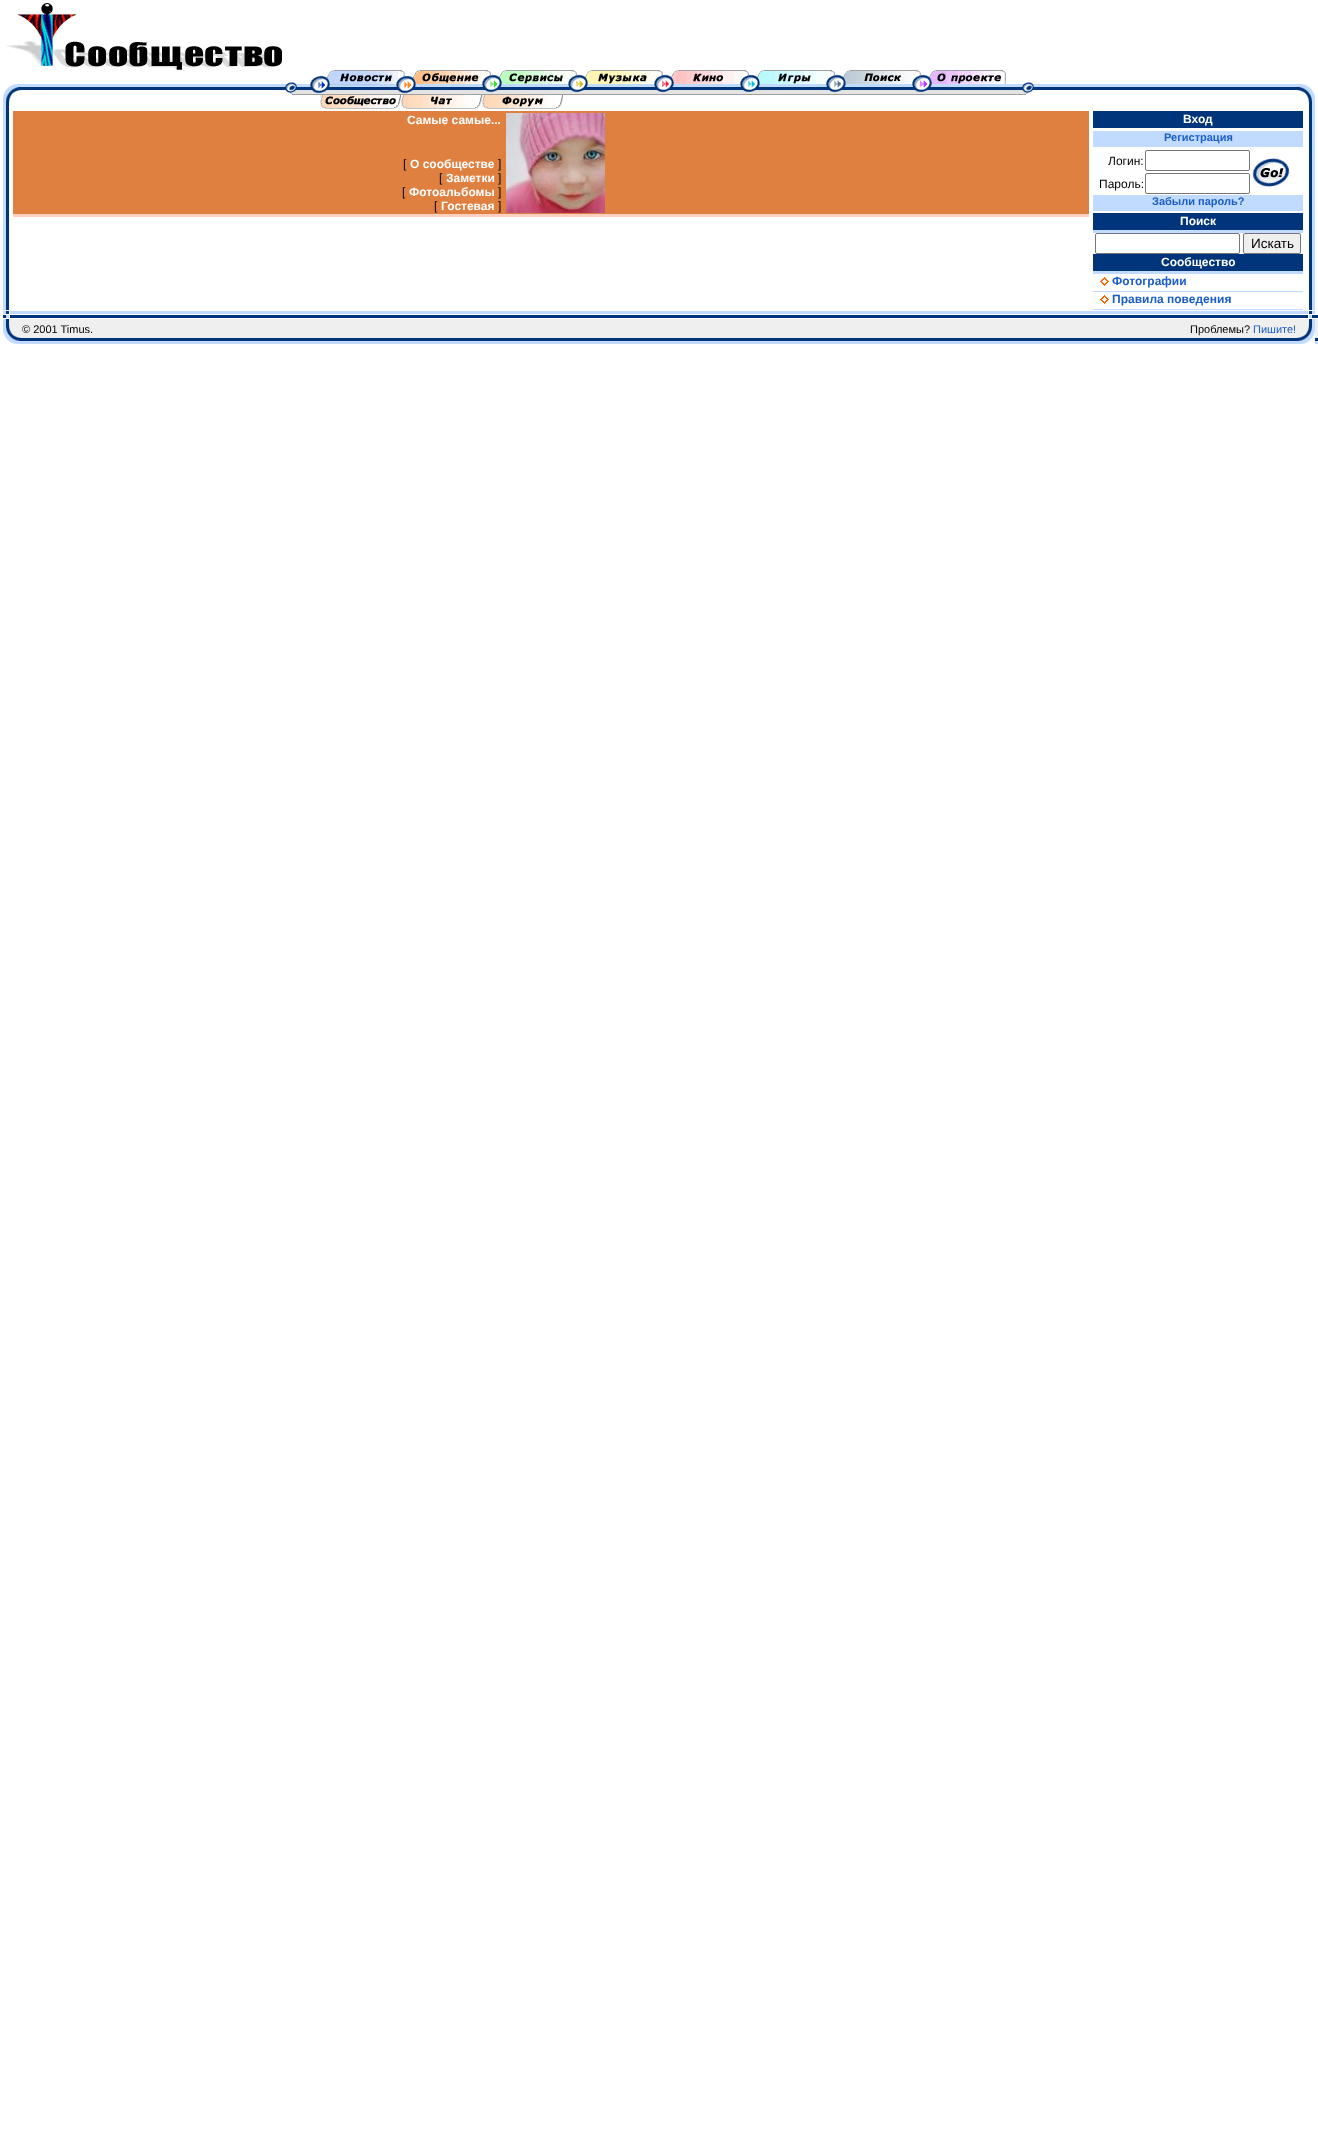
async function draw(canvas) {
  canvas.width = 1318
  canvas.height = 2155
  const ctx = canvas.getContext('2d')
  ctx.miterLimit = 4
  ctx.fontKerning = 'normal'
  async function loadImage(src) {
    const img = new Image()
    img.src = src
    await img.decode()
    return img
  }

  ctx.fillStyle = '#fff'
  ctx.fillRect(0, 0, 1318, 2155)
  ctx.drawImage(await loadImage('image0.png'), 6, 3, 276, 67)
  ctx.drawImage(await loadImage('image1.png'), 3, 84, 19, 27)
  ctx.drawImage(await loadImage('image2.png'), 22, 84, 263, 6)
  ctx.drawImage(await loadImage('image3.png'), 285, 76, 33, 19)
  ctx.drawImage(await loadImage('image4.png'), 318, 70, 86, 25)
  ctx.drawImage(await loadImage('image5.png'), 404, 70, 86, 25)
  ctx.drawImage(await loadImage('image6.png'), 490, 70, 86, 25)
  ctx.drawImage(await loadImage('image7.png'), 576, 70, 86, 25)
  ctx.drawImage(await loadImage('image8.png'), 662, 70, 86, 25)
  ctx.drawImage(await loadImage('image9.png'), 748, 70, 86, 25)
  ctx.drawImage(await loadImage('image10.png'), 834, 70, 86, 25)
  ctx.drawImage(await loadImage('image11.png'), 920, 70, 86, 25)
  ctx.drawImage(await loadImage('image12.png'), 1006, 82, 28, 13)
  ctx.drawImage(await loadImage('image13.png'), 1034, 84, 262, 6)
  ctx.drawImage(await loadImage('image14.png'), 1296, 84, 19, 27)
  ctx.drawImage(await loadImage('image15.png'), 320, 95, 81, 14)
  ctx.drawImage(await loadImage('image16.png'), 401, 95, 81, 14)
  ctx.drawImage(await loadImage('image17.png'), 482, 95, 81, 14)
  ctx.fillStyle = '#c0dbff'
  ctx.fillRect(3, 111, 3, 199)
  ctx.fillStyle = '#00357c'
  ctx.fillRect(6, 111, 3, 199)
  ctx.fillStyle = '#e08040'
  ctx.fillRect(13, 111, 1076, 103)
  ctx.fillStyle = '#ffd0c0'
  ctx.fillRect(13, 214, 1076, 3)
  ctx.font = 'bold 12px Liberation Sans'
  ctx.fillStyle = '#fff'
  ctx.fillText('Самые самые...', 407, 124)
  ctx.drawImage(await loadImage('image18.png'), 506, 113, 99, 100)
  ctx.font = '12px Liberation Sans'
  ctx.fillStyle = '#000'
  ctx.fillText('[', 403, 168)
  ctx.font = 'bold 12px Liberation Sans'
  ctx.fillStyle = '#fff'
  ctx.fillText('О сообществе', 410, 168)
  ctx.font = '12px Liberation Sans'
  ctx.fillStyle = '#000'
  ctx.fillText(']', 498, 168)
  ctx.fillText('[', 439, 182)
  ctx.font = 'bold 12px Liberation Sans'
  ctx.fillStyle = '#fff'
  ctx.fillText('Заметки', 446, 182)
  ctx.font = '12px Liberation Sans'
  ctx.fillStyle = '#000'
  ctx.fillText(']', 498, 182)
  ctx.fillText('[', 402, 196)
  ctx.font = 'bold 12px Liberation Sans'
  ctx.fillStyle = '#fff'
  ctx.fillText('Фотоальбомы', 409, 196)
  ctx.font = '12px Liberation Sans'
  ctx.fillStyle = '#000'
  ctx.fillText(']', 498, 196)
  ctx.fillText('[', 434, 210)
  ctx.font = 'bold 12px Liberation Sans'
  ctx.fillStyle = '#fff'
  ctx.fillText('Гостевая', 441, 210)
  ctx.font = '12px Liberation Sans'
  ctx.fillStyle = '#000'
  ctx.fillText(']', 498, 210)
  ctx.fillStyle = '#00347b'
  ctx.fillRect(1093, 111, 210, 17)
  ctx.font = 'bold 12px Liberation Sans'
  ctx.fillStyle = '#fff'
  ctx.fillText('Вход', 1183, 123)
  ctx.fillStyle = '#c0dbff'
  ctx.fillRect(1093, 131, 210, 16)
  ctx.font = 'bold 11px Liberation Sans'
  ctx.fillStyle = '#1a5cc8'
  ctx.fillText('Регистрация', 1164, 141)
  ctx.font = '12px Liberation Sans'
  ctx.fillStyle = '#000'
  ctx.fillText('Логин:', 1108, 165)
  ctx.beginPath()
  ctx.roundRect(1145.5, 150.5, 104, 20, 1.5)
  ctx.strokeStyle = '#767676'
  ctx.stroke()
  ctx.drawImage(await loadImage('image19.png'), 1252, 158, 38, 29)
  ctx.fillText('Пароль:', 1099, 188)
  ctx.beginPath()
  ctx.roundRect(1145.5, 173.5, 104, 20, 1.5)
  ctx.stroke()
  ctx.fillStyle = '#c0dbff'
  ctx.fillRect(1093, 195, 210, 16)
  ctx.font = 'bold 11px Liberation Sans'
  ctx.fillStyle = '#1a5cc8'
  ctx.fillText('Забыли пароль?', 1152, 205)
  ctx.fillStyle = '#00347b'
  ctx.fillRect(1093, 213, 210, 17)
  ctx.fillStyle = '#c0dbff'
  ctx.fillRect(1093, 230, 210, 3)
  ctx.font = 'bold 12px Liberation Sans'
  ctx.fillStyle = '#fff'
  ctx.fillText('Поиск', 1180, 225)
  ctx.beginPath()
  ctx.roundRect(1095.5, 233.5, 144, 20, 1.5)
  ctx.stroke()
  ctx.fillStyle = '#efefef'
  ctx.beginPath()
  ctx.roundRect(1243.5, 233.5, 57, 20, 1.5)
  ctx.fill()
  ctx.stroke()
  ctx.font = '13.5px Liberation Sans'
  ctx.fillStyle = '#000'
  ctx.fillText('Искать', 1251, 248)
  ctx.fillStyle = '#00347b'
  ctx.fillRect(1093, 254, 210, 17)
  ctx.fillStyle = '#c0dbff'
  ctx.fillRect(1093, 271, 210, 3)
  ctx.font = 'bold 12px Liberation Sans'
  ctx.fillStyle = '#fff'
  ctx.fillText('Сообщество', 1161, 266)
  ctx.fillStyle = '#c0dbff'
  ctx.fillRect(1093, 291, 210, 1)
  ctx.drawImage(await loadImage('image20.png'), 1100, 277, 9, 9)
  ctx.fillStyle = '#1a5cc8'
  ctx.fillText('Фотографии', 1112, 285)
  ctx.fillStyle = '#c0dbff'
  ctx.fillRect(1093, 309, 210, 1)
  ctx.drawImage(await loadImage('image20.png'), 1100, 295, 9, 9)
  ctx.fillStyle = '#1a5cc8'
  ctx.fillText('Правила поведения', 1112, 303)
  ctx.fillStyle = '#00357c'
  ctx.fillRect(1309, 111, 3, 199)
  ctx.fillStyle = '#c0dbff'
  ctx.fillRect(1312, 111, 3, 199)
  ctx.drawImage(await loadImage('image21.png'), 3, 311, 19, 33)
  ctx.fillRect(22, 311, 1274, 3)
  ctx.fillStyle = '#00357c'
  ctx.fillRect(22, 315, 1296, 3)
  ctx.fillStyle = '#efefef'
  ctx.fillRect(22, 319, 1296, 19)
  ctx.fillStyle = '#00357c'
  ctx.fillRect(22, 338, 1296, 3)
  ctx.fillStyle = '#c0dbff'
  ctx.fillRect(22, 341, 1296, 3)
  ctx.drawImage(await loadImage('image22.png'), 1296, 311, 19, 33)
  ctx.font = '11px Liberation Sans'
  ctx.fillStyle = '#000'
  ctx.fillText('© 2001 Timus.', 22, 333)
  ctx.fillText('Проблемы?', 1190, 333)
  ctx.fillStyle = '#1a5cc8'
  ctx.fillText('Пишите!', 1253, 333)
}

draw(document.querySelector('canvas'))
